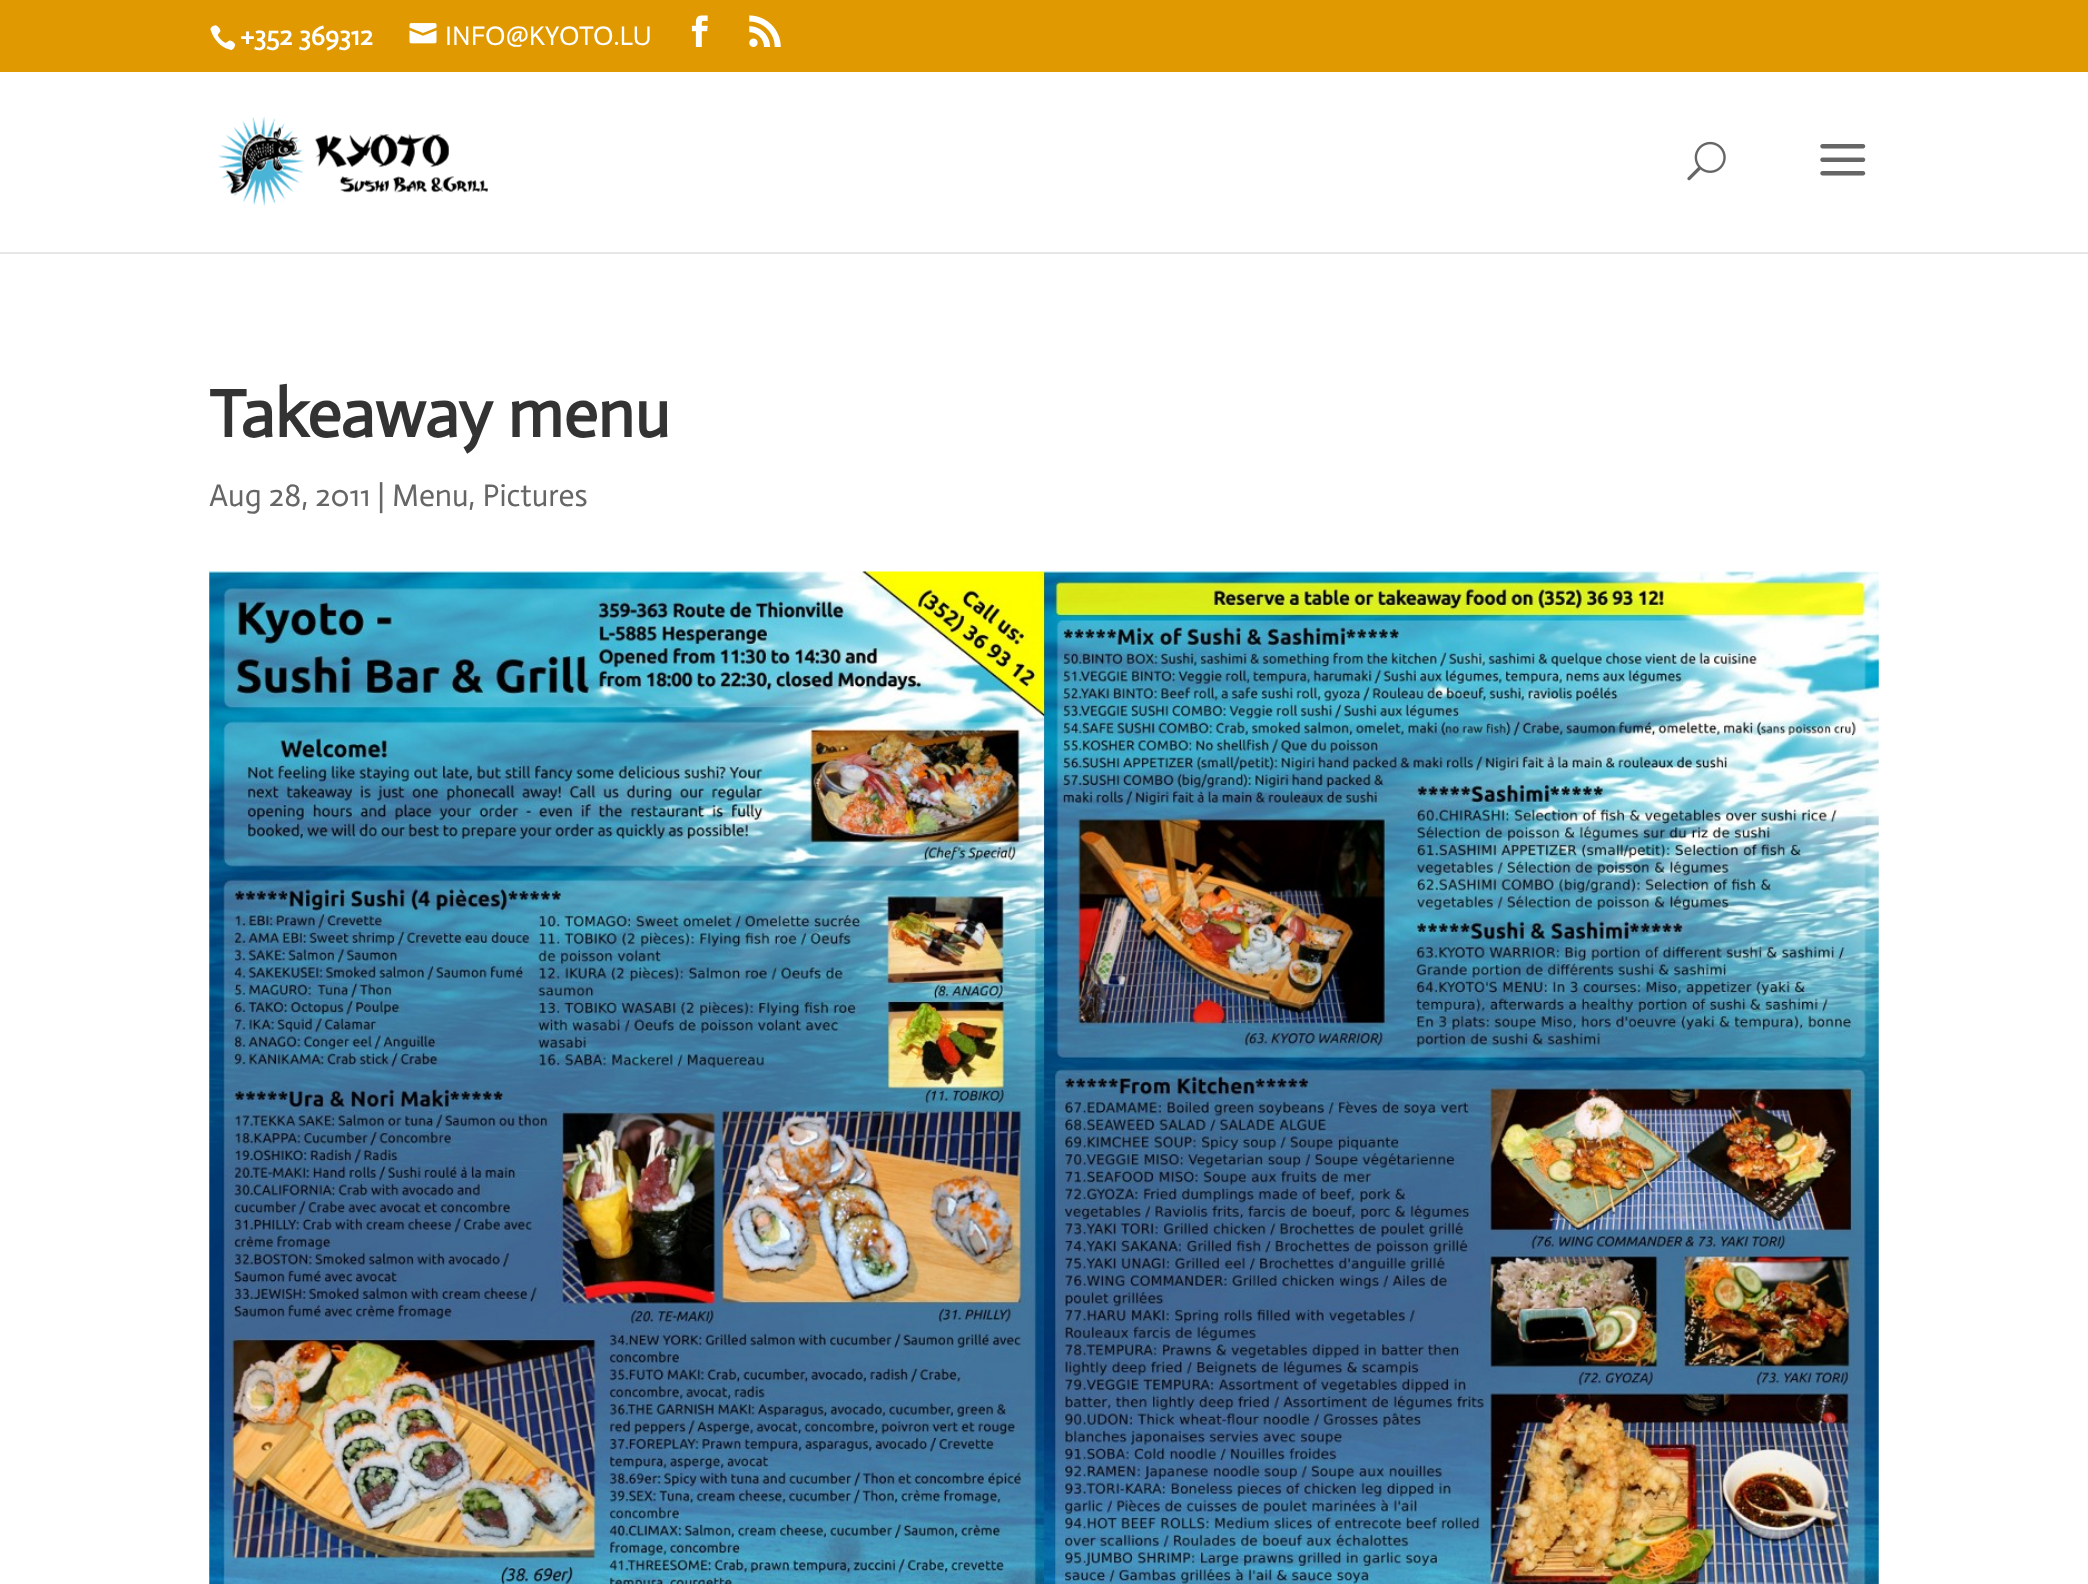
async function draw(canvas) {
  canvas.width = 2088
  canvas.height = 1584
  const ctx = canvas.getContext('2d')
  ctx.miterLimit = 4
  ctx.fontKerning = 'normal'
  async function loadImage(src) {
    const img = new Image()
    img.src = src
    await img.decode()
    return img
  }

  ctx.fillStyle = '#fff'
  ctx.fillRect(0, 0, 2088, 1584)
  ctx.fillStyle = '#e09900'
  ctx.fillRect(0, 0, 2088, 72)
  ctx.drawImage(await loadImage('image0.png'), 210, 25, 26, 26)
  ctx.font = 'bold 27px Actor'
  ctx.fillStyle = '#fff'
  ctx.fillText('+352 369312', 240, 45)
  ctx.drawImage(await loadImage('image1.png'), 409, 23, 28, 21)
  ctx.font = '27px Actor'
  ctx.fillText('INFO@KYOTO.LU', 445, 45)
  ctx.drawImage(await loadImage('image2.png'), 691, 15, 17, 32)
  ctx.drawImage(await loadImage('image3.png'), 749, 15, 32, 32)
  ctx.fillStyle = '#e6e6e6'
  ctx.fillRect(0, 252, 2088, 2)
  ctx.drawImage(await loadImage('image4.png'), 218, 116, 271, 91)
  ctx.drawImage(await loadImage('image5.png'), 1687, 141, 39, 40)
  ctx.drawImage(await loadImage('image6.png'), 1820, 144, 46, 32)
  ctx.font = 'bold 67.5px Actor'
  ctx.fillStyle = '#333'
  ctx.fillText('Takeaway menu', 209, 437)
  ctx.font = '31.5px Actor'
  ctx.fillStyle = '#666'
  ctx.fillText('Aug 28, 2011 | Menu, Pictures', 209, 506)
  ctx.drawImage(await loadImage('image7.png'), 209, 571, 1670, 1013)
}

draw(document.querySelector('canvas'))
